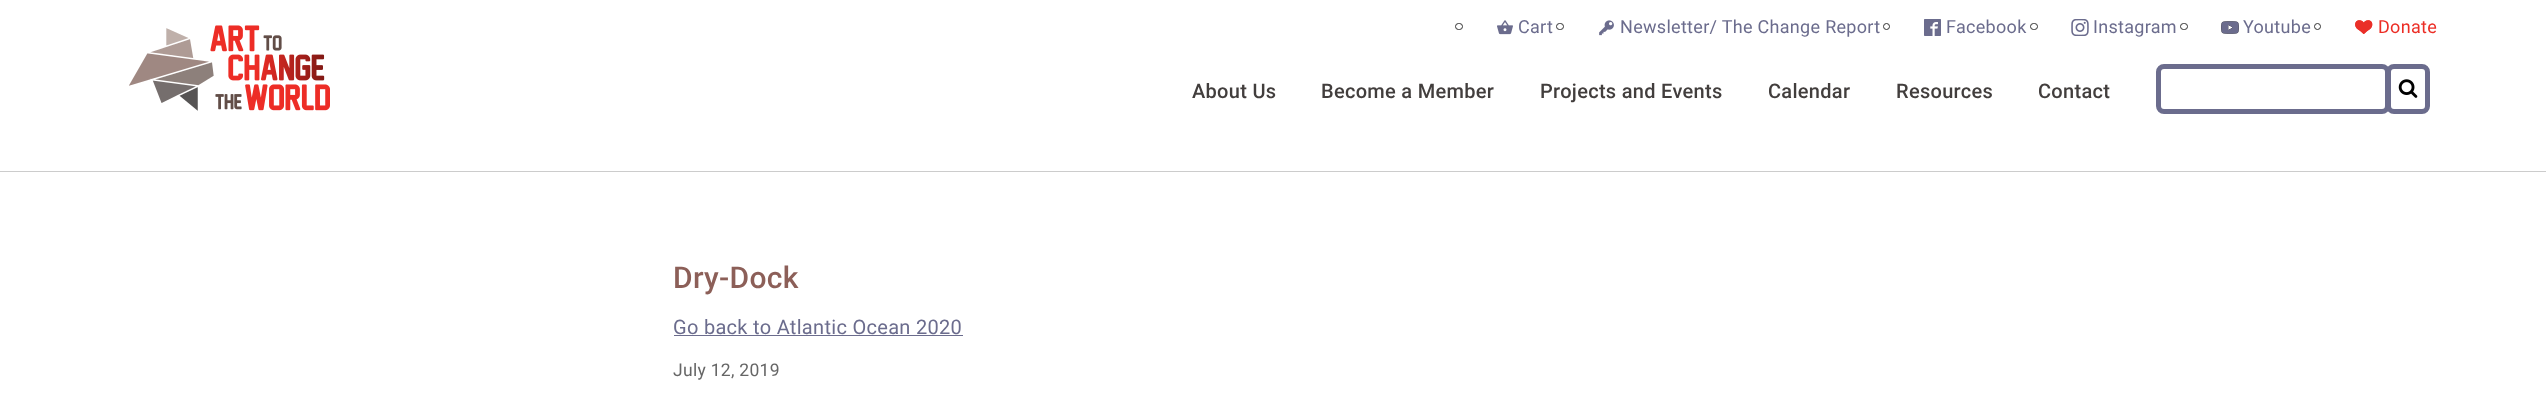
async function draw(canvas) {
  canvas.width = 2546
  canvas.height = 399
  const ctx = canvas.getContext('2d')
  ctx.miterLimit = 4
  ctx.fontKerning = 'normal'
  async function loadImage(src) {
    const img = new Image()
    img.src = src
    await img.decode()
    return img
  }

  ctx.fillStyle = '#fff'
  ctx.fillRect(0, 0, 2546, 399)
  ctx.fillStyle = '#ccc'
  ctx.fillRect(0, 171, 2546, 1)
  ctx.drawImage(await loadImage('image0.png'), 129, 25, 201, 86)
  ctx.beginPath()
  ctx.roundRect(1455.5, 23.5, 7, 6, 3)
  ctx.strokeStyle = '#333'
  ctx.stroke()
  ctx.drawImage(await loadImage('image1.png'), 1497, 20, 16, 15)
  ctx.letterSpacing = '0.3px'
  ctx.font = '18px Roboto'
  ctx.fillStyle = '#6b6c8d'
  ctx.fillText('Cart', 1518, 33)
  ctx.beginPath()
  ctx.roundRect(1556.5, 23.5, 7, 6, 3)
  ctx.stroke()
  ctx.drawImage(await loadImage('image2.png'), 1599, 20, 15, 16)
  ctx.fillText('Newsletter/ The Change Report', 1620, 33)
  ctx.beginPath()
  ctx.arc(1886.5, 26.5, 3, 0, 2 * Math.PI)
  ctx.stroke()
  ctx.drawImage(await loadImage('image3.png'), 1924, 19, 17, 17)
  ctx.fillText('Facebook', 1946, 33)
  ctx.beginPath()
  ctx.roundRect(2030.5, 23.5, 7, 6, 3)
  ctx.stroke()
  ctx.drawImage(await loadImage('image4.png'), 2071, 19, 18, 17)
  ctx.fillText('Instagram', 2093, 33)
  ctx.beginPath()
  ctx.roundRect(2180.5, 23.5, 7, 6, 3)
  ctx.stroke()
  ctx.drawImage(await loadImage('image5.png'), 2221, 21, 18, 13)
  ctx.fillText('Youtube', 2243, 33)
  ctx.beginPath()
  ctx.arc(2317.5, 26.5, 3, 0, 2 * Math.PI)
  ctx.stroke()
  ctx.drawImage(await loadImage('image6.png'), 2355, 20, 18, 14)
  ctx.fillStyle = '#ec2d25'
  ctx.fillText('Donate', 2378, 33)
  ctx.font = '500 20px Roboto'
  ctx.fillStyle = '#423e3d'
  ctx.fillText('About Us', 1192, 98)
  ctx.fillText('Become a Member', 1321, 98)
  ctx.fillText('Projects and Events', 1540, 98)
  ctx.fillText('Calendar', 1768, 98)
  ctx.fillText('Resources', 1896, 98)
  ctx.fillText('Contact', 2038, 98)
  ctx.beginPath()
  ctx.roundRect(2158.5, 66.5, 229, 45, 5.5)
  ctx.strokeStyle = '#6b6c8d'
  ctx.lineWidth = 5
  ctx.stroke()
  ctx.beginPath()
  ctx.roundRect(2388.5, 66.5, 39, 45, 5.5)
  ctx.stroke()
  ctx.drawImage(await loadImage('image7.png'), 2398, 79, 20, 19)
  ctx.font = '500 30px Roboto'
  ctx.fillStyle = '#8c5f58'
  ctx.fillText('Dry-Dock', 673, 288)
  ctx.font = '20px Roboto'
  ctx.fillStyle = '#6b6c8d'
  ctx.fillText('Go back to Atlantic Ocean 2020', 673, 334)
  ctx.fillRect(674, 335, 289, 1)
  ctx.font = '17.5px Roboto'
  ctx.fillStyle = '#666'
  ctx.fillText('July 12, 2019', 673, 376)
}

draw(document.querySelector('canvas'))
